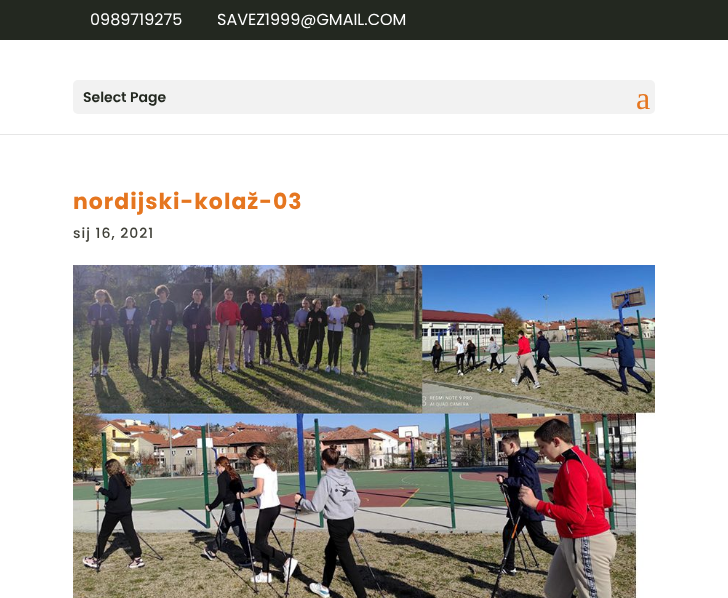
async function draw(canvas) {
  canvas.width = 728
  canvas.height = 598
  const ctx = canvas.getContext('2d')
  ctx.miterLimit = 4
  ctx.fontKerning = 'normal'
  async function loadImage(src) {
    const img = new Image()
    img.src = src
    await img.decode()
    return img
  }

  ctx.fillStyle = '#fff'
  ctx.fillRect(0, 0, 728, 598)
  ctx.fillStyle = '#232820'
  ctx.fillRect(0, 0, 728, 40)
  ctx.font = '16px Poppins'
  ctx.fillStyle = '#fff'
  ctx.fillText('0989719275', 90, 25)
  ctx.fillText('SAVEZ1999@GMAIL.COM', 217, 25)
  ctx.fillStyle = '#e6e6e6'
  ctx.fillRect(0, 134, 728, 1)
  ctx.fillStyle = '#f2f2f2'
  ctx.beginPath()
  ctx.roundRect(73, 80, 582, 34, 5)
  ctx.fill()
  ctx.font = '600 14px Poppins'
  ctx.fillStyle = '#232820'
  ctx.fillText('Select Page', 83, 102)
  ctx.font = '32px Liberation Serif'
  ctx.fillStyle = '#e57620'
  ctx.fillText('a', 636, 109)
  ctx.letterSpacing = '1px'
  ctx.font = 'bold 22px Poppins'
  ctx.fillText('nordijski-kolaž-03', 73, 209)
  ctx.font = '500 14px Poppins'
  ctx.fillStyle = '#3f3f37'
  ctx.fillText('sij 16, 2021', 73, 238)
  ctx.drawImage(await loadImage('image0.png'), 73, 265, 582, 333)
}

draw(document.querySelector('canvas'))
